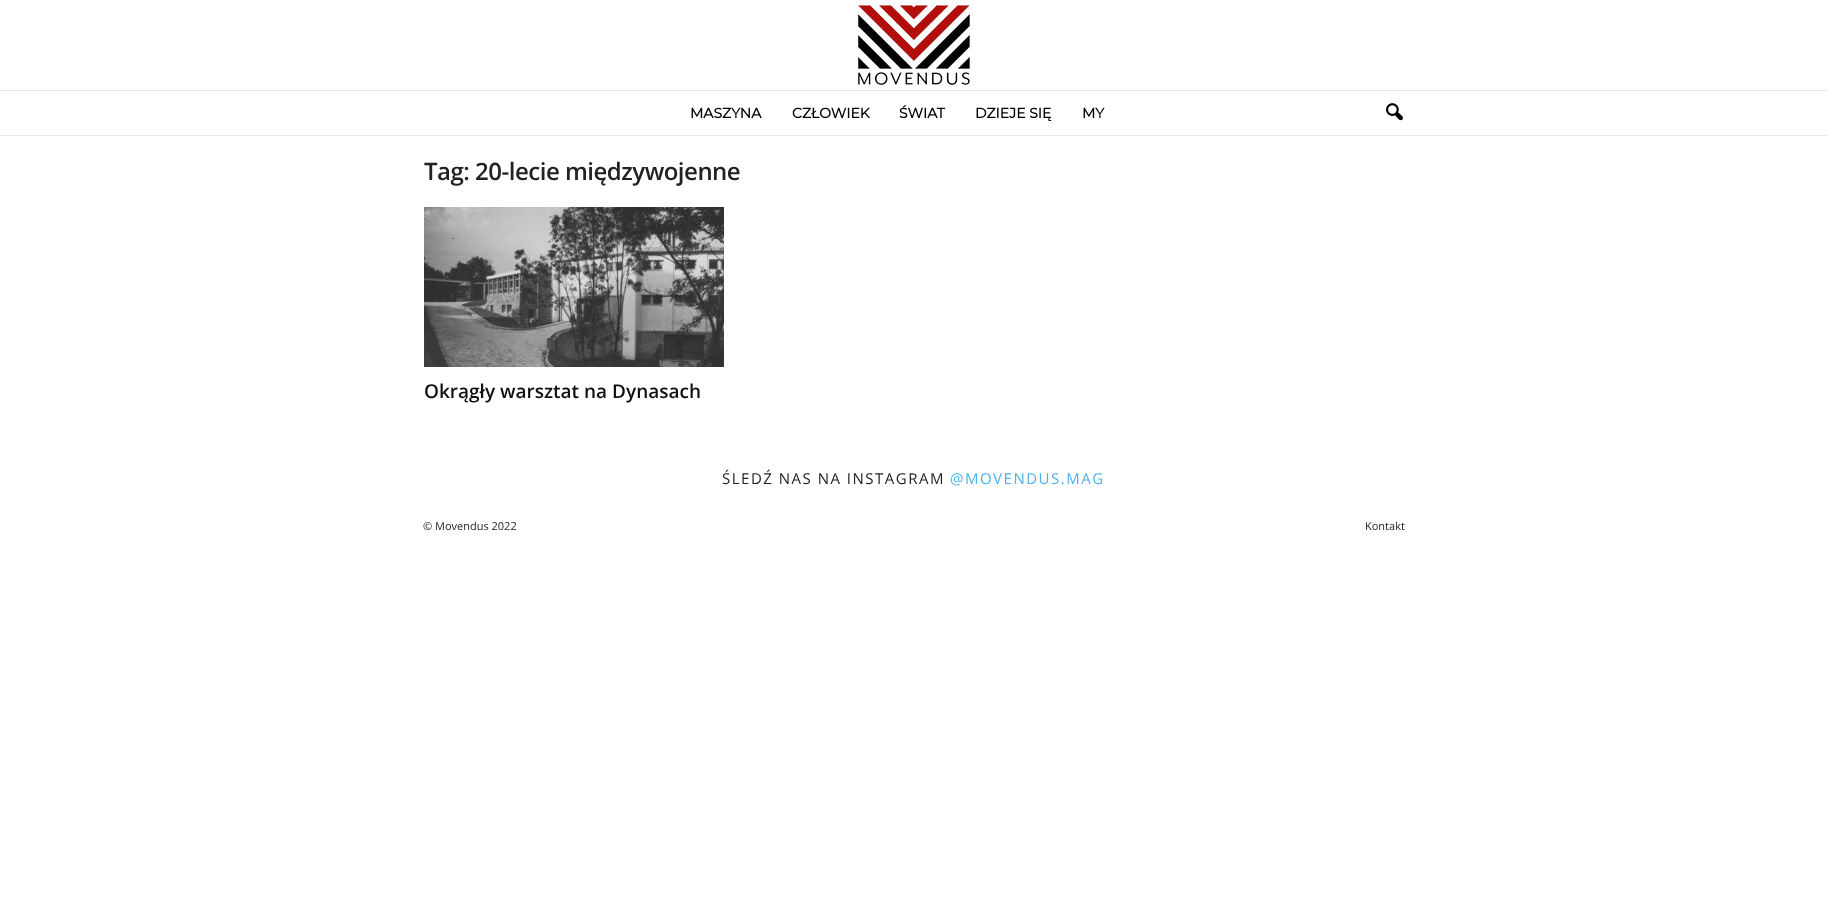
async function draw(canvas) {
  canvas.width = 1827
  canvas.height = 924
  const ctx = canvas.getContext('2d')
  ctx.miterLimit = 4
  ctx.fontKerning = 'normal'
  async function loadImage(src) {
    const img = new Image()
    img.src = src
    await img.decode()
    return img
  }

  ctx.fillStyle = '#fff'
  ctx.fillRect(0, 0, 1827, 924)
  ctx.drawImage(await loadImage('image0.png'), 857, 5, 113, 80)
  ctx.fillStyle = '#e6e6e6'
  ctx.fillRect(0, 90, 1827, 1)
  ctx.fillRect(0, 135, 1827, 1)
  ctx.font = 'bold 14px Montserrat'
  ctx.fillStyle = '#000'
  ctx.fillText('MASZYNA', 690, 118)
  ctx.fillText('CZŁOWIEK', 792, 118)
  ctx.fillText('ŚWIAT', 899, 118)
  ctx.fillText('DZIEJE SIĘ', 975, 118)
  ctx.fillText('MY', 1082, 118)
  ctx.drawImage(await loadImage('image1.png'), 1386, 103, 17, 18)
  ctx.letterSpacing = '-0.5px'
  ctx.font = '600 24px Open Sans'
  ctx.fillStyle = '#222'
  ctx.fillText('Tag: 20-lecie międzywojenne', 424, 180)
  ctx.drawImage(await loadImage('image2.png'), 424, 207, 300, 160)
  ctx.letterSpacing = '0px'
  ctx.font = '600 19px Open Sans'
  ctx.fillStyle = '#111'
  ctx.fillText('Okrągły warsztat na Dynasach', 424, 398)
  ctx.letterSpacing = '1.5px'
  ctx.font = '15px Open Sans'
  ctx.fillStyle = '#222'
  ctx.fillText('ŚLEDŹ NAS NA INSTAGRAM', 722, 484)
  ctx.fillStyle = '#4db2ec'
  ctx.fillText('@MOVENDUS.MAG', 950, 484)
  ctx.letterSpacing = '0px'
  ctx.font = '11px Open Sans'
  ctx.fillStyle = '#222'
  ctx.fillText('© Movendus 2022', 423, 530)
  ctx.fillText('Kontakt', 1365, 530)
}

draw(document.querySelector('canvas'))
